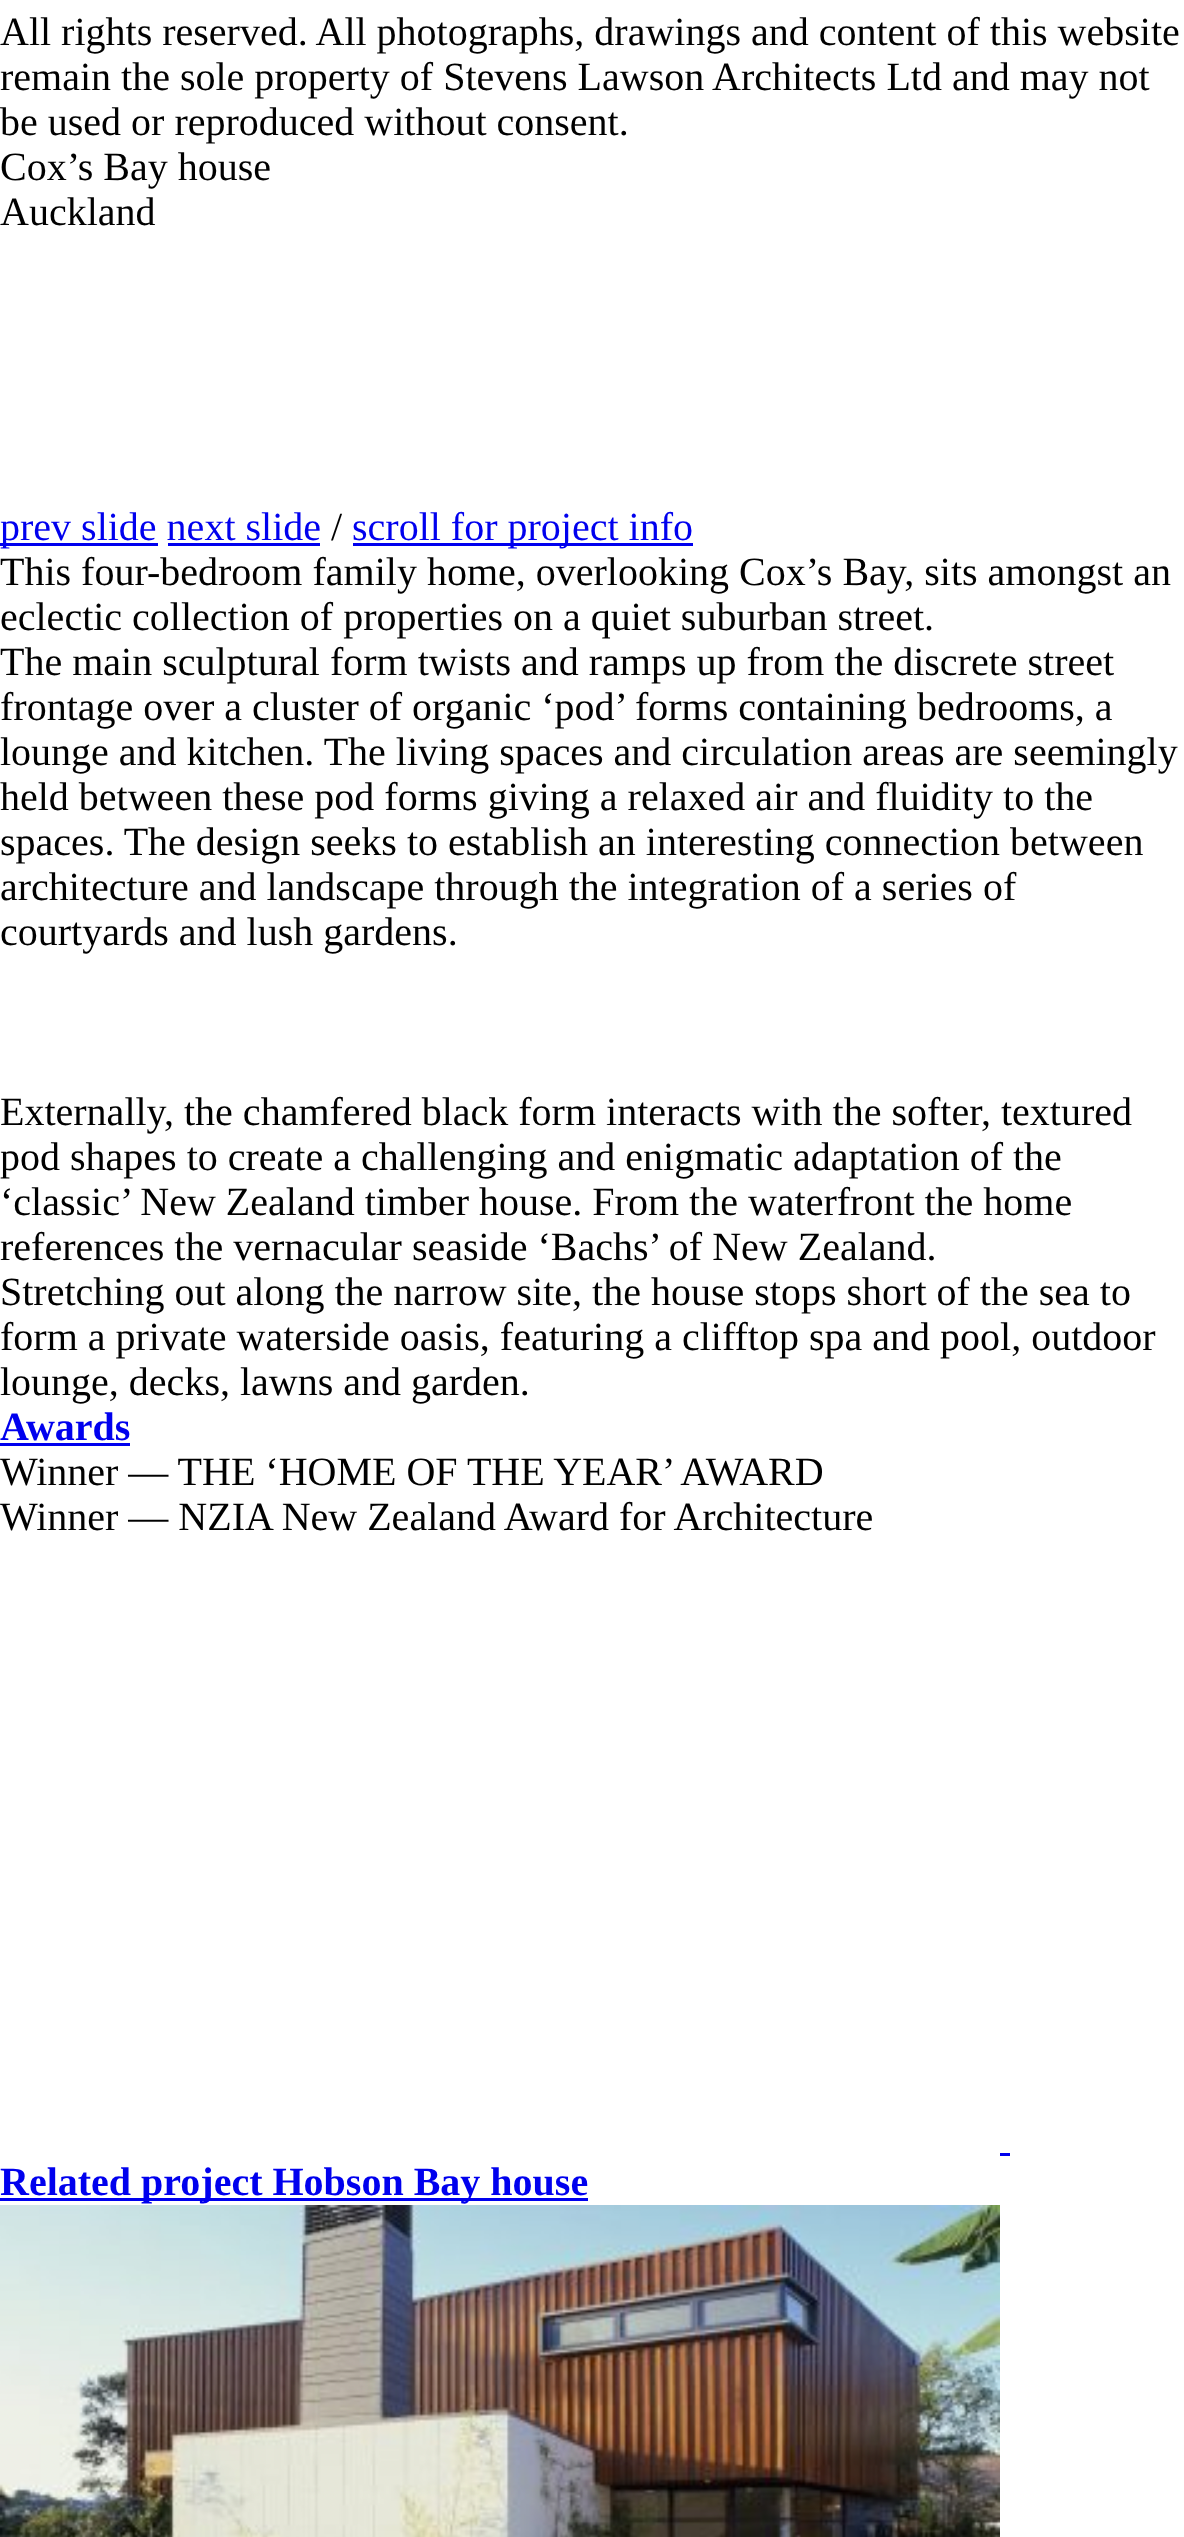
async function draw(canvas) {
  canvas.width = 1184
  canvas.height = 2537
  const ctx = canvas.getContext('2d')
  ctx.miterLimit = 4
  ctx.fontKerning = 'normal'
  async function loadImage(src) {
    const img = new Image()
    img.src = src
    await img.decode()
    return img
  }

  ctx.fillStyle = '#fff'
  ctx.fillRect(0, 0, 1184, 2537)
  ctx.font = '40px Liberation Serif'
  ctx.fillStyle = '#000'
  ctx.fillText('All rights reserved. All photographs, drawings and content of this website', 0, 45)
  ctx.fillText('remain the sole property of Stevens Lawson Architects Ltd and may not', 0, 90)
  ctx.fillText('be used or reproduced without consent.', 0, 135)
  ctx.fillText('Cox’s Bay house', 0, 180)
  ctx.fillText('Auckland', 0, 225)
  ctx.fillStyle = '#00e'
  ctx.fillRect(0, 543, 158, 3)
  ctx.fillText('prev slide next slide', 0, 540)
  ctx.fillStyle = '#000'
  ctx.fillText('/', 331, 540)
  ctx.fillStyle = '#00e'
  ctx.fillRect(353, 543, 340, 3)
  ctx.fillText('scroll for project info', 352, 540)
  ctx.fillRect(168, 543, 152, 3)
  ctx.fillStyle = '#000'
  ctx.fillText('This four-bedroom family home, overlooking Cox’s Bay, sits amongst an', 0, 585)
  ctx.fillText('eclectic collection of properties on a quiet suburban street.', 0, 630)
  ctx.fillText('The main sculptural form twists and ramps up from the discrete street', 0, 675)
  ctx.fillText('frontage over a cluster of organic ‘pod’ forms containing bedrooms, a', 0, 720)
  ctx.fillText('lounge and kitchen. The living spaces and circulation areas are seemingly', 0, 765)
  ctx.fillText('held between these pod forms giving a relaxed air and fluidity to the', 0, 810)
  ctx.fillText('spaces. The design seeks to establish an interesting connection between', 0, 855)
  ctx.fillText('architecture and landscape through the integration of a series of', 0, 900)
  ctx.fillText('courtyards and lush gardens.', 0, 945)
  ctx.fillText('Externally, the chamfered black form interacts with the softer, textured', 0, 1125)
  ctx.fillText('pod shapes to create a challenging and enigmatic adaptation of the', 0, 1170)
  ctx.fillText('‘classic’ New Zealand timber house. From the waterfront the home', 0, 1215)
  ctx.fillText('references the vernacular seaside ‘Bachs’ of New Zealand.', 0, 1260)
  ctx.fillText('Stretching out along the narrow site, the house stops short of the sea to', 0, 1305)
  ctx.fillText('form a private waterside oasis, featuring a clifftop spa and pool, outdoor', 0, 1350)
  ctx.fillText('lounge, decks, lawns and garden.', 0, 1395)
  ctx.font = 'bold 40px Liberation Serif'
  ctx.fillStyle = '#00e'
  ctx.fillText('Awards', 0, 1440)
  ctx.fillRect(0, 1443, 130, 3)
  ctx.font = '40px Liberation Serif'
  ctx.fillStyle = '#000'
  ctx.fillText('Winner — THE ‘HOME OF THE YEAR’ AWARD', 0, 1485)
  ctx.fillText('Winner — NZIA New Zealand Award for Architecture', 0, 1530)
  ctx.fillStyle = '#00e'
  ctx.fillRect(1000, 2153, 10, 3)
  ctx.fillRect(0, 2198, 588, 3)
  ctx.font = 'bold 40px Liberation Serif'
  ctx.fillText('Related project Hobson Bay house', 0, 2195)
  ctx.drawImage(await loadImage('image0.png'), 0, 2205, 1000, 332)
}

draw(document.querySelector('canvas'))
